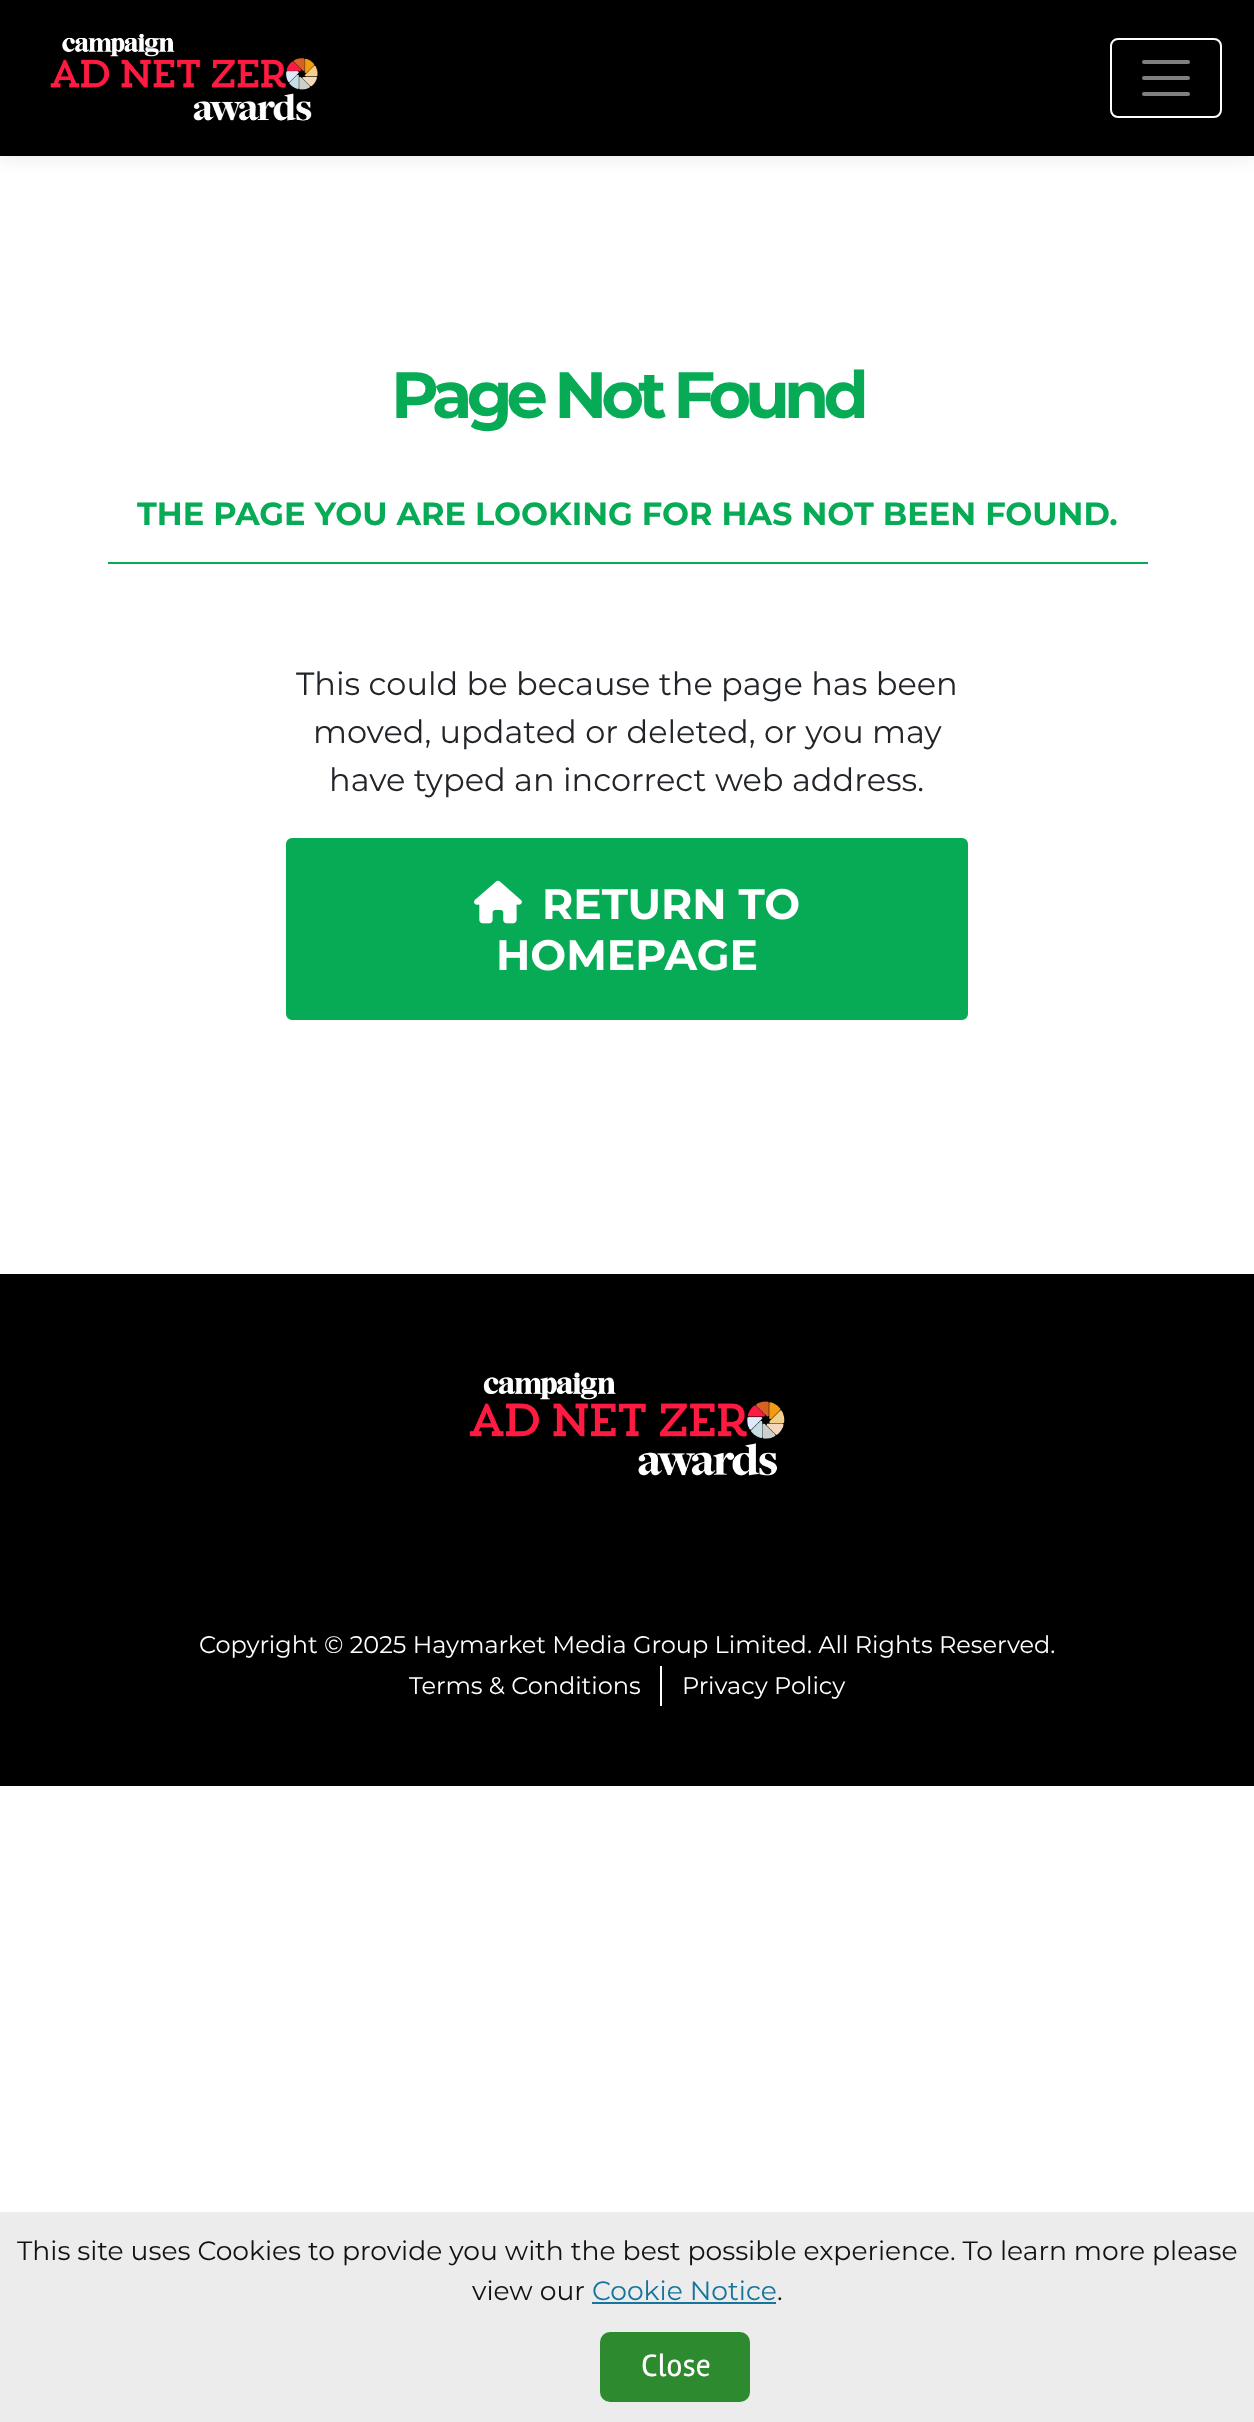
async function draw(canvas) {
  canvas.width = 1254
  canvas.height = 2422
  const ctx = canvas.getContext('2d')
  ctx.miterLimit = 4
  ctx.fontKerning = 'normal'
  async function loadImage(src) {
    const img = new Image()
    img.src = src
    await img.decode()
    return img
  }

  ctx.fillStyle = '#fff'
  ctx.fillRect(0, 0, 1254, 2422)
  ctx.fillStyle = '#0000001a'
  ctx.filter = 'blur(10px)'
  ctx.beginPath()
  ctx.rect(0, 0, 1254, 156)
  ctx.fill()
  ctx.filter = 'none'
  ctx.fillStyle = '#000'
  ctx.fillRect(0, 0, 1254, 156)
  ctx.drawImage(await loadImage('image0.png'), 50, 33, 268, 88)
  ctx.beginPath()
  ctx.roundRect(1111, 39, 110, 78, 7)
  ctx.strokeStyle = '#fff'
  ctx.lineWidth = 2
  ctx.stroke()
  ctx.beginPath()
  ctx.moveTo(1144, 62)
  ctx.lineTo(1188, 62)
  ctx.moveTo(1144, 78)
  ctx.lineTo(1188, 78)
  ctx.moveTo(1144, 94)
  ctx.lineTo(1188, 94)
  ctx.strokeStyle = '#808080'
  ctx.lineWidth = 4
  ctx.lineCap = 'round'
  ctx.stroke()
  ctx.letterSpacing = '-6px'
  ctx.font = 'bold 65.5px Montserrat'
  ctx.fillStyle = '#07aa55'
  ctx.fillText('Page Not Found', 391, 418)
  ctx.letterSpacing = '0px'
  ctx.font = 'bold 32px Montserrat'
  ctx.fillText('THE PAGE YOU ARE LOOKING FOR HAS NOT BEEN FOUND.', 137, 525)
  ctx.fillRect(108, 562, 1040, 2)
  ctx.font = '32px Montserrat'
  ctx.fillStyle = '#212529'
  ctx.fillText('This could be because the page has been', 296, 695)
  ctx.fillText('moved, updated or deleted, or you may', 313, 743)
  ctx.fillText('have typed an incorrect web address.', 329, 791)
  ctx.fillStyle = '#07aa55'
  ctx.beginPath()
  ctx.roundRect(285, 837, 684, 184, 7)
  ctx.fill()
  ctx.strokeStyle = '#fff'
  ctx.lineWidth = 2
  ctx.stroke()
  ctx.drawImage(await loadImage('image1.png'), 474, 880, 48, 44)
  ctx.font = 'bold 42.5px Montserrat'
  ctx.fillStyle = '#fff'
  ctx.fillText('RETURN TO', 542, 919)
  ctx.fillText('HOMEPAGE', 496, 970)
  ctx.fillStyle = '#000'
  ctx.fillRect(0, 1274, 1254, 512)
  ctx.drawImage(await loadImage('image2.png'), 469, 1372, 316, 104)
  ctx.font = '24px Montserrat'
  ctx.fillStyle = '#fff'
  ctx.fillText('Copyright © 2025 Haymarket Media Group Limited. All Rights Reserved.', 199, 1653)
  ctx.fillText('Terms & Conditions', 409, 1694)
  ctx.fillRect(660, 1666, 2, 40)
  ctx.fillText('Privacy Policy', 682, 1694)
  ctx.fillStyle = '#ececec'
  ctx.fillRect(0, 2212, 1254, 210)
  ctx.font = '26.6px Montserrat'
  ctx.fillStyle = '#121212'
  ctx.fillText('This site uses Cookies to provide you with the best possible experience. To learn more please', 17, 2260)
  ctx.fillText('view our', 472, 2300)
  ctx.fillStyle = '#17749b'
  ctx.fillText('Cookie Notice', 592, 2300)
  ctx.fillRect(592, 2302, 184, 2)
  ctx.fillStyle = '#121212'
  ctx.fillText('.', 777, 2300)
  ctx.fillStyle = '#2e8a2e'
  ctx.beginPath()
  ctx.roundRect(600, 2332, 150, 70, 10)
  ctx.fill()
  ctx.font = '32px Rambla'
  ctx.fillStyle = '#fff'
  ctx.fillText('Close', 641, 2376)
}

draw(document.querySelector('canvas'))
